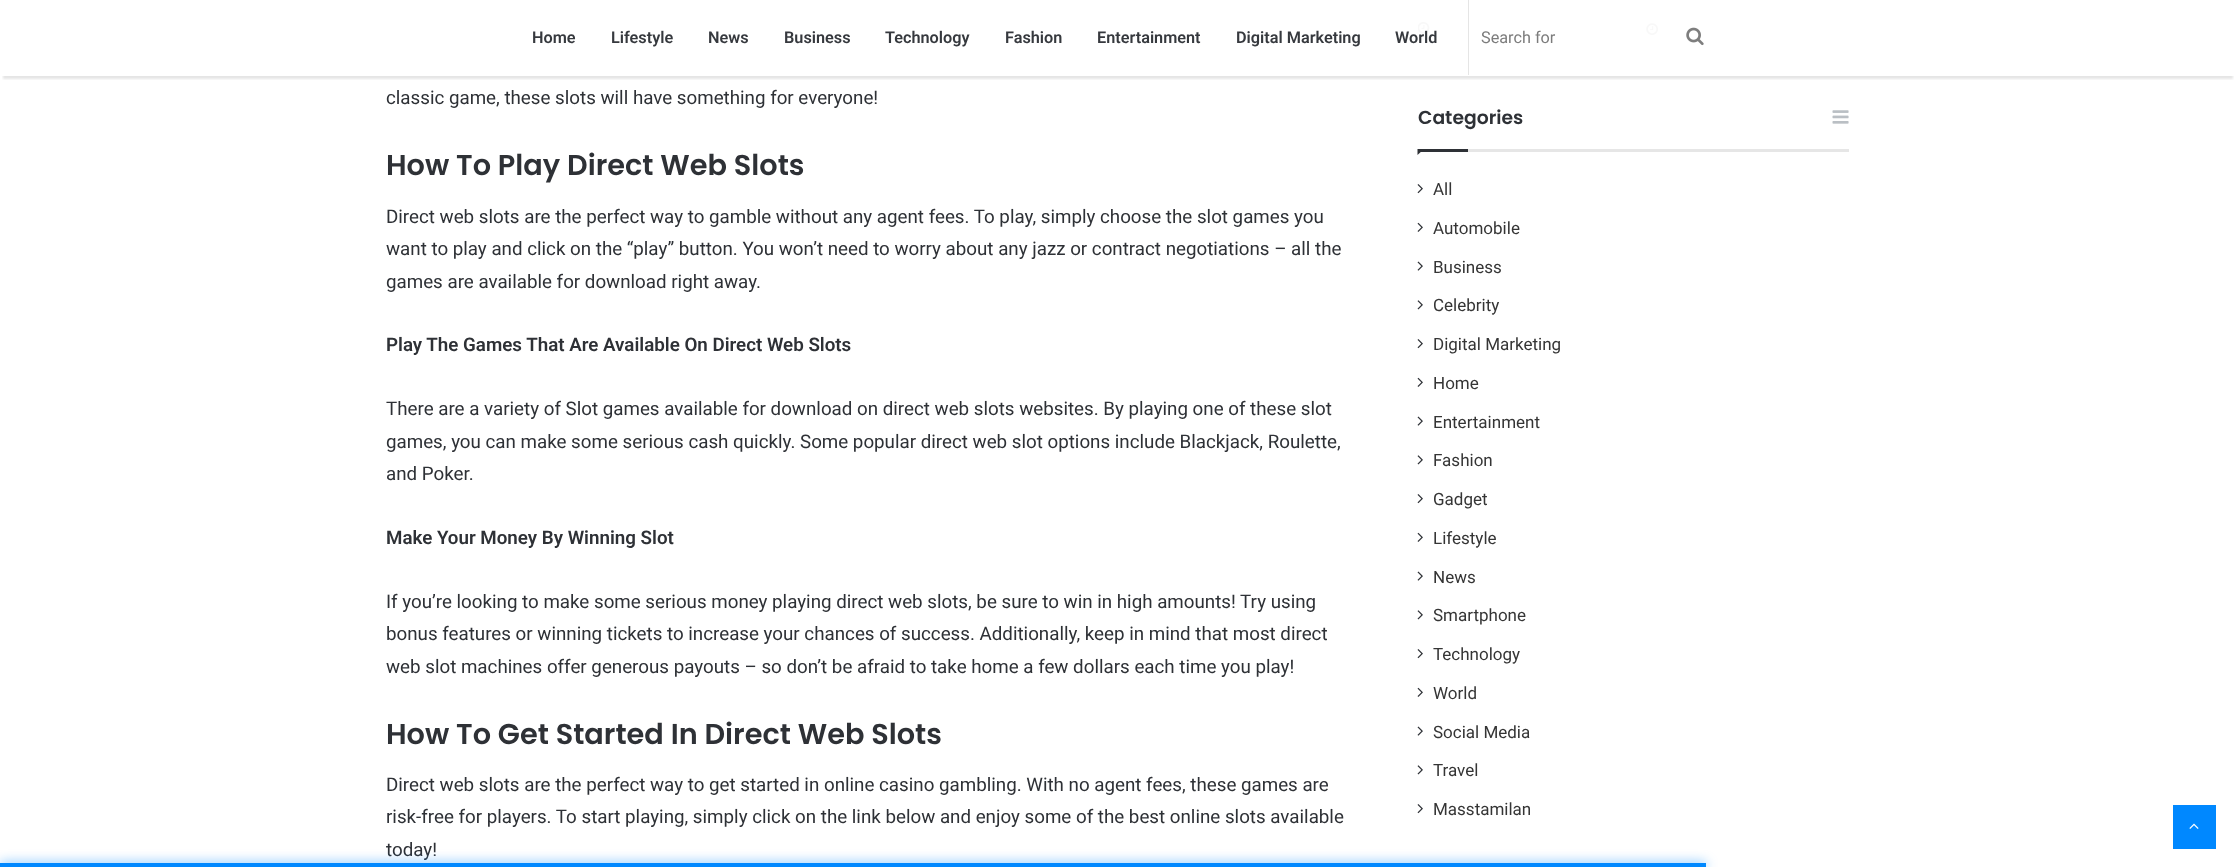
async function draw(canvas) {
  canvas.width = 2235
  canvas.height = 867
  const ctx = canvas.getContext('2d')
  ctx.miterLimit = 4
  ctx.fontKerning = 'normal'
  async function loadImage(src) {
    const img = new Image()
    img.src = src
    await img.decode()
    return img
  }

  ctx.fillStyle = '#fff'
  ctx.fillRect(0, 0, 2235, 867)
  ctx.drawImage(await loadImage('image1.png'), 1418, 22, 12, 12)
  ctx.drawImage(await loadImage('image2.png'), 1646, 23, 12, 12)
  ctx.save()
  ctx.beginPath()
  ctx.rect(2, 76, 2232, 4)
  ctx.clip()
  ctx.fillStyle = '#0000001a'
  ctx.filter = 'blur(1px)'
  ctx.beginPath()
  ctx.rect(3, 8, 2230, 71)
  ctx.fill()
  ctx.filter = 'none'
  ctx.restore()
  ctx.font = '600 16.25px Roboto'
  ctx.fillStyle = '#36393e'
  ctx.fillText('Home', 532, 43)
  ctx.fillText('Lifestyle', 611, 43)
  ctx.fillText('News', 708, 43)
  ctx.fillText('Business', 784, 43)
  ctx.fillText('Technology', 885, 43)
  ctx.fillText('Fashion', 1005, 43)
  ctx.fillText('Entertainment', 1097, 43)
  ctx.fillText('Digital Marketing', 1236, 43)
  ctx.fillText('World', 1395, 43)
  ctx.fillStyle = '#0000001a'
  ctx.fillRect(1468, 0, 1, 75)
  ctx.font = '16.25px Roboto'
  ctx.fillStyle = '#7c7c7c'
  ctx.fillText('Search for', 1481, 43)
  ctx.drawImage(await loadImage('image0.png'), 1686, 27, 18, 19)
  ctx.font = '18.75px Roboto'
  ctx.fillStyle = '#2e3136'
  ctx.fillText('classic game, these slots will have something for everyone!', 386, 104)
  ctx.font = '600 28.75px Poppins'
  ctx.fillText('How To Play Direct Web Slots', 386, 175)
  ctx.font = '18.75px Roboto'
  ctx.fillText('Direct web slots are the perfect way to gamble without any agent fees. To play, simply choose the slot games you', 386, 223)
  ctx.fillText('want to play and click on the “play” button. You won’t need to worry about any jazz or contract negotiations – all the', 386, 255)
  ctx.fillText('games are available for download right away.', 386, 288)
  ctx.font = '600 18.75px Roboto'
  ctx.fillText('Play The Games That Are Available On Direct Web Slots', 386, 351)
  ctx.font = '18.75px Roboto'
  ctx.fillText('There are a variety of Slot games available for download on direct web slots websites. By playing one of these slot', 386, 415)
  ctx.fillText('games, you can make some serious cash quickly. Some popular direct web slot options include Blackjack, Roulette,', 386, 448)
  ctx.fillText('and Poker.', 386, 480)
  ctx.font = '600 18.75px Roboto'
  ctx.fillText('Make Your Money By Winning Slot', 386, 544)
  ctx.font = '18.75px Roboto'
  ctx.fillText('If you’re looking to make some serious money playing direct web slots, be sure to win in high amounts! Try using', 386, 608)
  ctx.fillText('bonus features or winning tickets to increase your chances of success. Additionally, keep in mind that most direct', 386, 640)
  ctx.fillText('web slot machines offer generous payouts – so don’t be afraid to take home a few dollars each time you play!', 386, 673)
  ctx.font = '600 28.75px Poppins'
  ctx.fillText('How To Get Started In Direct Web Slots', 386, 744)
  ctx.font = '18.75px Roboto'
  ctx.fillText('Direct web slots are the perfect way to get started in online casino gambling. With no agent fees, these games are', 386, 791)
  ctx.fillText('risk-free for players. To start playing, simply click on the link below and enjoy some of the best online slots available', 386, 823)
  ctx.fillText('today!', 386, 856)
  ctx.fillStyle = '#e6e6e6'
  ctx.fillRect(1468, 149, 381, 3)
  ctx.font = '600 18.75px Poppins'
  ctx.fillStyle = '#2e3136'
  ctx.fillText('Categories', 1418, 124)
  ctx.drawImage(await loadImage('image3.png'), 1832, 110, 17, 14)
  ctx.beginPath()
  ctx.moveTo(1417.5, 149)
  ctx.lineTo(1424, 149)
  ctx.lineTo(1417.5, 155)
  ctx.closePath()
  ctx.fill()
  ctx.fillRect(1418, 149, 50, 3)
  ctx.drawImage(await loadImage('image4.png'), 1417, 184, 6, 10)
  ctx.font = '17px Roboto'
  ctx.fillStyle = '#353535'
  ctx.fillText('All', 1433, 195)
  ctx.drawImage(await loadImage('image5.png'), 1417, 222, 6, 10)
  ctx.fillText('Automobile', 1433, 234)
  ctx.drawImage(await loadImage('image6.png'), 1417, 261, 6, 10)
  ctx.fillText('Business', 1433, 273)
  ctx.drawImage(await loadImage('image7.png'), 1417, 300, 6, 10)
  ctx.fillText('Celebrity', 1433, 311)
  ctx.drawImage(await loadImage('image4.png'), 1417, 339, 6, 10)
  ctx.fillText('Digital Marketing', 1433, 350)
  ctx.drawImage(await loadImage('image5.png'), 1417, 377, 6, 10)
  ctx.fillText('Home', 1433, 389)
  ctx.drawImage(await loadImage('image6.png'), 1417, 416, 6, 10)
  ctx.fillText('Entertainment', 1433, 428)
  ctx.drawImage(await loadImage('image7.png'), 1417, 455, 6, 10)
  ctx.fillText('Fashion', 1433, 466)
  ctx.drawImage(await loadImage('image4.png'), 1417, 494, 6, 10)
  ctx.fillText('Gadget', 1433, 505)
  ctx.drawImage(await loadImage('image5.png'), 1417, 532, 6, 10)
  ctx.fillText('Lifestyle', 1433, 544)
  ctx.drawImage(await loadImage('image6.png'), 1417, 571, 6, 10)
  ctx.fillText('News', 1433, 583)
  ctx.drawImage(await loadImage('image7.png'), 1417, 610, 6, 10)
  ctx.fillText('Smartphone', 1433, 621)
  ctx.drawImage(await loadImage('image4.png'), 1417, 649, 6, 10)
  ctx.fillText('Technology', 1433, 660)
  ctx.drawImage(await loadImage('image5.png'), 1417, 687, 6, 10)
  ctx.fillText('World', 1433, 699)
  ctx.drawImage(await loadImage('image6.png'), 1417, 726, 6, 10)
  ctx.fillText('Social Media', 1433, 738)
  ctx.drawImage(await loadImage('image7.png'), 1417, 765, 6, 10)
  ctx.fillText('Travel', 1433, 776)
  ctx.drawImage(await loadImage('image4.png'), 1417, 804, 6, 10)
  ctx.fillText('Masstamilan', 1433, 815)
  ctx.fillStyle = '#08f'
  ctx.fillRect(2173, 805, 43, 44)
  ctx.drawImage(await loadImage('image8.png'), 2189, 823, 10, 6)
  ctx.fillStyle = '#0088ffb3'
  ctx.filter = 'blur(6px)'
  ctx.beginPath()
  ctx.rect(0, 863, 1706, 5)
  ctx.fill()
  ctx.filter = 'none'
  ctx.fillStyle = '#08f'
  ctx.fillRect(0, 863, 1706, 4)
}

draw(document.querySelector('canvas'))
